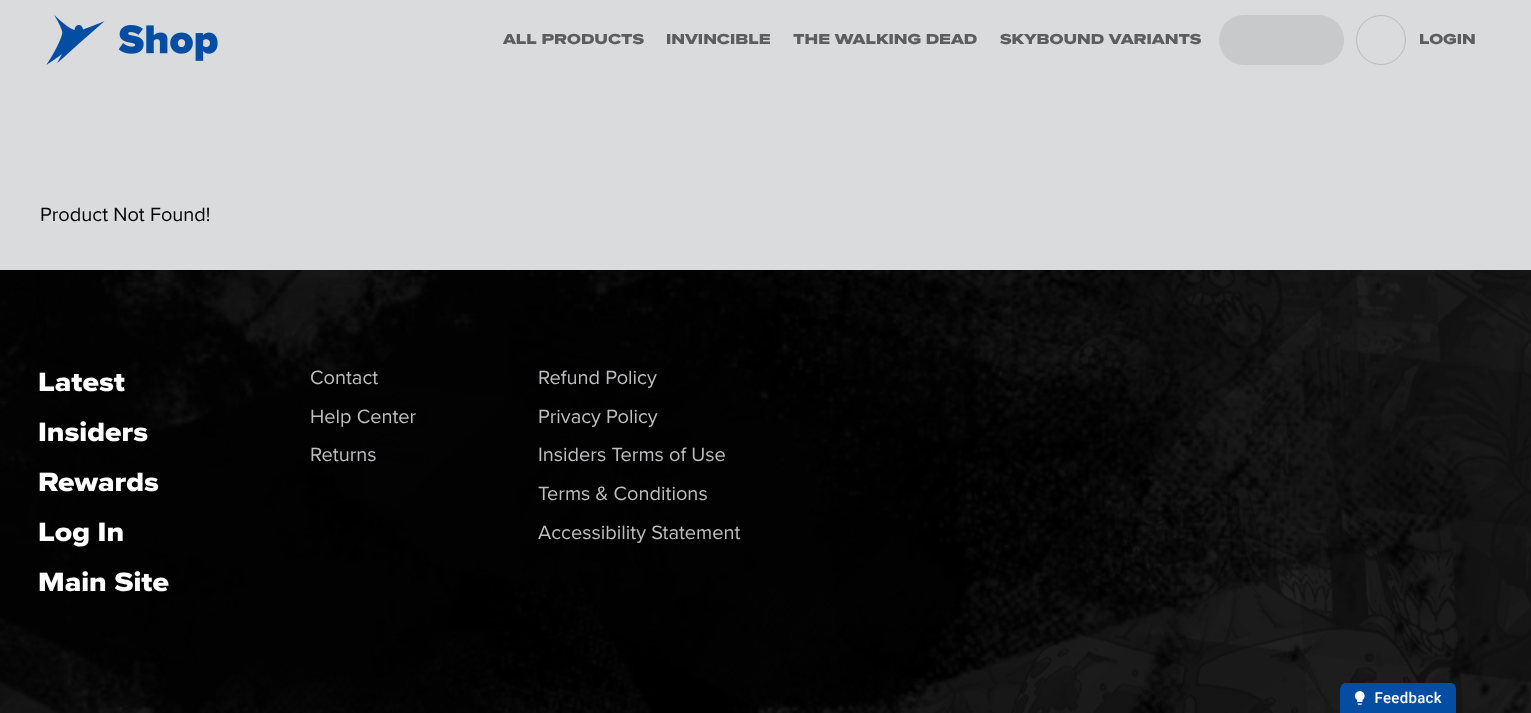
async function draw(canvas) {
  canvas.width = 1531
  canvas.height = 713
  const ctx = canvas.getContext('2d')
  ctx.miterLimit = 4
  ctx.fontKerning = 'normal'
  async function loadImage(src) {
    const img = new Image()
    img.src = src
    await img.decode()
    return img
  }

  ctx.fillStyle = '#d9dbdd'
  ctx.fillRect(0, 0, 1531, 713)
  ctx.drawImage(await loadImage('image0.png'), 46, 15, 172, 50)
  ctx.font = '800 15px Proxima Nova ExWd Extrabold'
  ctx.fillStyle = '#5c5d60'
  ctx.fillText('ALL PRODUCTS', 503, 44)
  ctx.fillText('INVINCIBLE', 666, 44)
  ctx.fillText('THE WALKING DEAD', 793, 44)
  ctx.fillText('SKYBOUND VARIANTS', 1000, 44)
  ctx.fillStyle = '#c8c9cb'
  ctx.beginPath()
  ctx.roundRect(1219, 15, 125, 50, 25)
  ctx.fill()
  ctx.beginPath()
  ctx.arc(1381, 40, 24.5, 0, 2 * Math.PI)
  ctx.strokeStyle = '#b8babc'
  ctx.stroke()
  ctx.fillStyle = '#5c5d60'
  ctx.fillText('LOGIN', 1419, 44)
  ctx.font = '20px Proxima Nova'
  ctx.fillStyle = '#000'
  ctx.fillText('Product Not Found!', 40, 221)
  ctx.drawImage(await loadImage('image1.png'), 0, 270, 1531, 443)
  ctx.font = '800 27.5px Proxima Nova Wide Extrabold'
  ctx.fillStyle = '#fff'
  ctx.fillText('Latest', 38, 391)
  ctx.fillText('Insiders', 38, 441)
  ctx.fillText('Rewards', 38, 491)
  ctx.fillText('Log In', 38, 541)
  ctx.fillText('Main Site', 38, 591)
  ctx.font = '20px Proxima Nova'
  ctx.fillStyle = '#bcbec0'
  ctx.fillText('Contact', 310, 384)
  ctx.fillText('Help Center', 310, 423)
  ctx.fillText('Returns', 310, 461)
  ctx.fillText('Refund Policy', 538, 384)
  ctx.fillText('Privacy Policy', 538, 423)
  ctx.fillText('Insiders Terms of Use', 538, 461)
  ctx.fillText('Terms & Conditions', 538, 500)
  ctx.fillText('Accessibility Statement', 538, 539)
  ctx.drawImage(await loadImage('image2.png'), 1340, 683, 116, 30)
}

draw(document.querySelector('canvas'))
